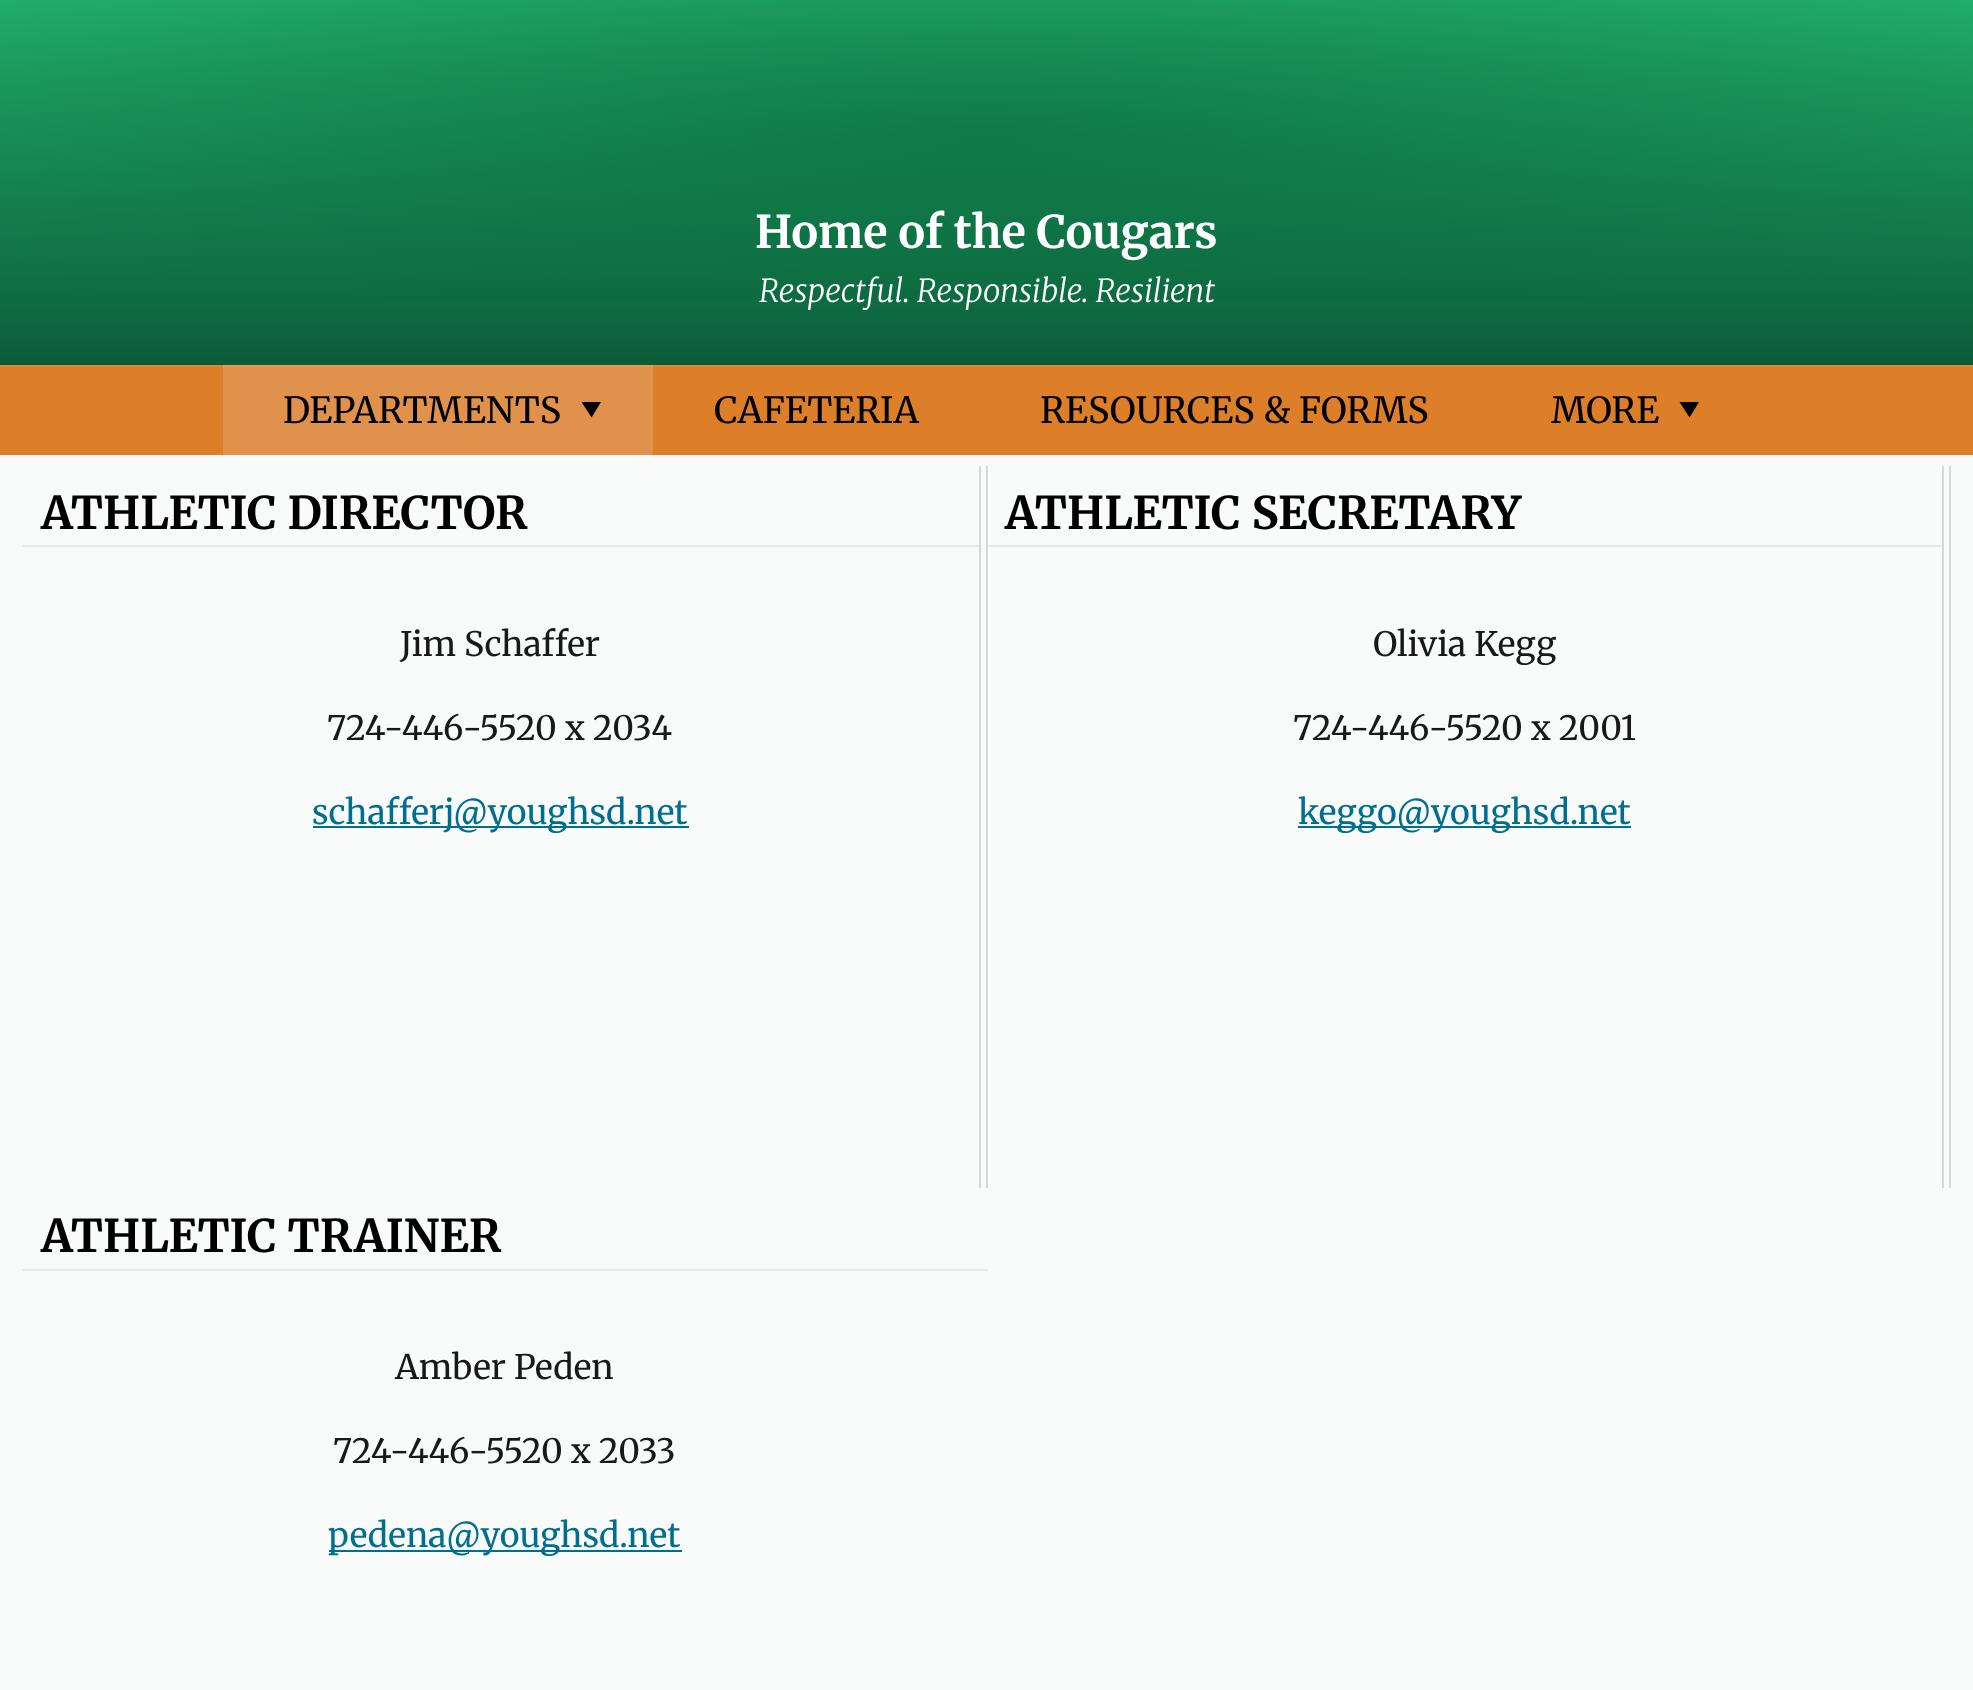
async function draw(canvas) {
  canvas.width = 1973
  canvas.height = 1690
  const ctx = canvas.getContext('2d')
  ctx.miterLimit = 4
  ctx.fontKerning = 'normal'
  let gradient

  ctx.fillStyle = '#f8fbfa'
  ctx.fillRect(0, 0, 1973, 1690)
  gradient = ctx.createLinearGradient(987, 365, 987, 0)
  gradient.addColorStop(0, '#0b5c37')
  gradient.addColorStop(1, '#24b572')
  ctx.fillStyle = gradient
  ctx.fillRect(0, 0, 1973, 365)
  gradient = ctx.createRadialGradient(987, 595.37, 0, 987, 595.37, 1395)
  gradient.addColorStop(0, '#08683b99')
  gradient.addColorStop(1, '#08683b00')
  ctx.fillStyle = gradient
  ctx.beginPath()
  ctx.rect(0, 0, 1973, 300)
  ctx.save()
  ctx.clip()
  ctx.scale(1, 321 / 1395)
  ctx.fillRect(0, 0, 1973, 7345)
  ctx.restore()
  ctx.font = 'bold 45px Merriweather'
  ctx.fillStyle = '#fff'
  ctx.fillText('Home of the Cougars', 755, 248)
  ctx.font = 'italic 300 31.5px Merriweather'
  ctx.fillText('Respectful. Responsible. Resilient', 759, 302)
  ctx.fillStyle = '#dd7e28'
  ctx.fillRect(0, 367, 1973, 88)
  ctx.fillStyle = '#e0924c'
  ctx.fillRect(223, 367, 430, 88)
  ctx.fillStyle = '#df8737'
  ctx.fillRect(0, 365, 1973, 2)
  ctx.fillStyle = '#e29a58'
  ctx.fillRect(223, 365, 430, 2)
  ctx.font = '36px Merriweather'
  ctx.fillStyle = '#000'
  ctx.fillText('DEPARTMENTS', 283, 423)
  ctx.beginPath()
  ctx.moveTo(581.5, 402)
  ctx.lineTo(591.5, 417.5)
  ctx.lineTo(601, 402)
  ctx.closePath()
  ctx.fill()
  ctx.fillText('CAFETERIA', 714, 423)
  ctx.fillText('RESOURCES & FORMS', 1040, 423)
  ctx.fillText('MORE', 1551, 423)
  ctx.beginPath()
  ctx.moveTo(1679.5, 402)
  ctx.lineTo(1689.5, 417.5)
  ctx.lineTo(1699, 402)
  ctx.closePath()
  ctx.fill()
  ctx.fillStyle = '#e1e9e6'
  ctx.fillRect(988, 545, 954, 2)
  ctx.fillStyle = '#fff'
  ctx.fillRect(988, 466, 2, 722)
  ctx.fillStyle = '#e7edea'
  ctx.fillRect(988, 545, 2, 2)
  ctx.fillStyle = '#d5d8d7'
  ctx.fillRect(979, 466, 2, 722)
  ctx.fillRect(986, 466, 2, 722)
  ctx.fillStyle = '#e2e9e6'
  ctx.fillRect(23, 545, 956, 2)
  ctx.font = 'bold 45px Merriweather'
  ctx.fillStyle = '#000'
  ctx.fillText('ATHLETIC DIRECTOR', 41, 529)
  ctx.font = '33.75px Merriweather'
  ctx.fillStyle = '#191919'
  ctx.fillText('Jim Schaffer', 400, 656)
  ctx.fillText('724-446-5520 x 2034', 327, 740)
  ctx.fillStyle = '#006e8f'
  ctx.fillRect(313, 826, 376, 2)
  ctx.fillText('schafferj@youghsd.net', 312, 824)
  ctx.fillStyle = '#d5d8d7'
  ctx.fillRect(1942, 466, 2, 722)
  ctx.fillRect(1949, 466, 2, 722)
  ctx.font = 'bold 45px Merriweather'
  ctx.fillStyle = '#000'
  ctx.fillText('ATHLETIC SECRETARY', 1005, 529)
  ctx.font = '33.75px Merriweather'
  ctx.fillStyle = '#191919'
  ctx.fillText('Olivia Kegg', 1373, 656)
  ctx.fillText('724-446-5520 x 2001', 1293, 740)
  ctx.fillStyle = '#006e8f'
  ctx.fillRect(1298, 826, 333, 2)
  ctx.fillText('keggo@youghsd.net', 1298, 824)
  ctx.fillStyle = '#e2e9e6'
  ctx.fillRect(23, 1269, 965, 2)
  ctx.font = 'bold 45px Merriweather'
  ctx.fillStyle = '#000'
  ctx.fillText('ATHLETIC TRAINER', 41, 1252)
  ctx.font = '33.75px Merriweather'
  ctx.fillStyle = '#191919'
  ctx.fillText('Amber Peden', 395, 1379)
  ctx.fillText('724-446-5520 x 2033', 333, 1463)
  ctx.fillStyle = '#006e8f'
  ctx.fillRect(329, 1550, 353, 2)
  ctx.fillText('pedena@youghsd.net', 328, 1547)
}

draw(document.querySelector('canvas'))
